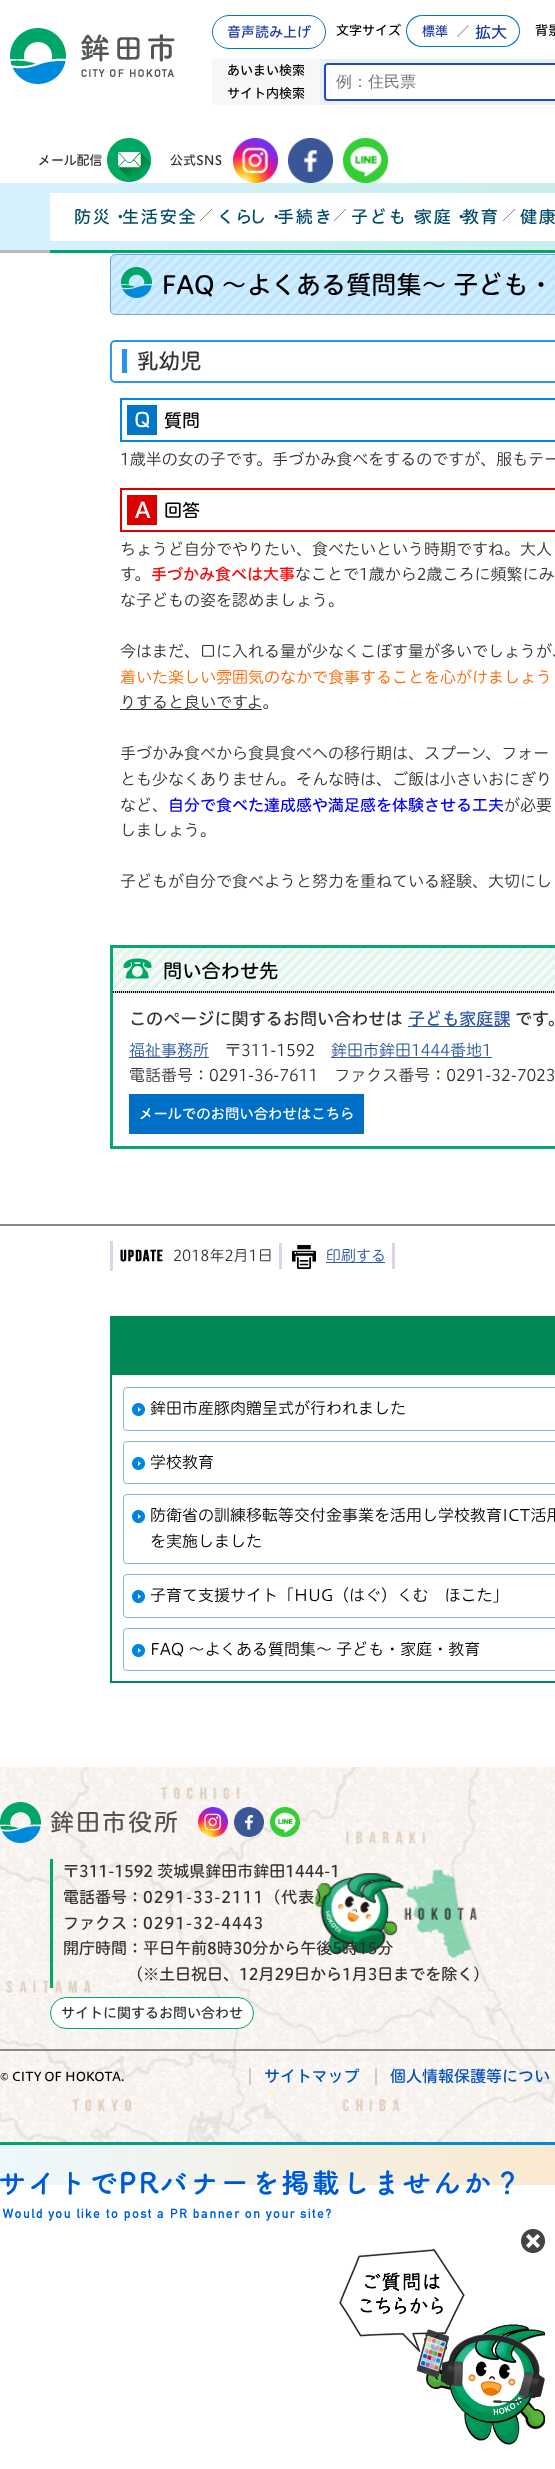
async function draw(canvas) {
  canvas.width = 555
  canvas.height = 2469
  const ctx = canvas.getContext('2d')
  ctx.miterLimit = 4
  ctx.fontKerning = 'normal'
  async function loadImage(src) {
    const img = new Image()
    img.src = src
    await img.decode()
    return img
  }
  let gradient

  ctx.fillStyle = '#fff'
  ctx.fillRect(0, 0, 555, 2469)
  ctx.drawImage(await loadImage('image0.png'), 10, 28, 165, 56)
  ctx.beginPath()
  ctx.roundRect(212.5, 15.5, 113, 33, 16.5)
  ctx.strokeStyle = '#0078cb'
  ctx.stroke()
  ctx.font = '500 14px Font'
  ctx.fillStyle = '#1d38a3'
  ctx.fillText('音声読み上げ', 227, 37)
  ctx.font = '500 13px Font'
  ctx.fillStyle = '#000'
  ctx.fillText('文字サイズ', 336, 35)
  ctx.drawImage(await loadImage('image1.png'), 457, 30, 6, 7)
  ctx.fillStyle = '#0078cb'
  ctx.beginPath()
  ctx.moveTo(422, 15)
  ctx.lineTo(463, 15)
  ctx.lineTo(463, 47)
  ctx.lineTo(422, 47)
  ctx.bezierCurveTo(413, 47, 406, 40, 406, 31)
  ctx.bezierCurveTo(406, 22, 413, 15, 422, 15)
  ctx.closePath()
  ctx.moveTo(422, 16)
  ctx.lineTo(463, 16)
  ctx.lineTo(463, 46)
  ctx.lineTo(422, 46)
  ctx.bezierCurveTo(414, 46, 407, 39, 407, 31)
  ctx.bezierCurveTo(407, 23, 414, 16, 422, 16)
  ctx.closePath()
  ctx.fill('evenodd')
  ctx.fillStyle = '#1d38a3'
  ctx.fillText('標準', 422, 36)
  ctx.drawImage(await loadImage('image2.png'), 463, 25, 6, 7)
  ctx.fillStyle = '#0078cb'
  ctx.beginPath()
  ctx.moveTo(463, 15)
  ctx.lineTo(504, 15)
  ctx.bezierCurveTo(513, 15, 520, 22, 520, 31)
  ctx.bezierCurveTo(520, 40, 513, 47, 504, 47)
  ctx.lineTo(463, 47)
  ctx.closePath()
  ctx.moveTo(463, 16)
  ctx.lineTo(504, 16)
  ctx.bezierCurveTo(512, 16, 519, 23, 519, 31)
  ctx.bezierCurveTo(519, 39, 512, 46, 504, 46)
  ctx.lineTo(463, 46)
  ctx.closePath()
  ctx.fill('evenodd')
  ctx.font = '500 16px Font'
  ctx.fillStyle = '#1d38a3'
  ctx.fillText('拡大', 475, 38)
  ctx.font = '500 13px Font'
  ctx.fillStyle = '#000'
  ctx.fillText('背景', 535, 35)
  ctx.fillStyle = '#f7f7f7'
  ctx.fillRect(212, 59, 108, 46)
  ctx.fillStyle = '#000'
  ctx.fillText('あいまい検索', 227, 75)
  ctx.fillText('サイト内検索', 227, 98)
  ctx.fillStyle = '#e7f1f6'
  ctx.fillRect(320, 59, 235, 46)
  ctx.beginPath()
  ctx.roundRect(325, 64, 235, 36, 3)
  ctx.strokeStyle = '#1f4cba'
  ctx.lineWidth = 2
  ctx.stroke()
  ctx.fillStyle = '#fff'
  ctx.beginPath()
  ctx.moveTo(328, 65)
  ctx.lineTo(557, 65)
  ctx.lineTo(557, 99)
  ctx.lineTo(328, 99)
  ctx.bezierCurveTo(327, 99, 326, 98, 326, 97)
  ctx.lineTo(326, 67)
  ctx.bezierCurveTo(326, 66, 327, 65, 328, 65)
  ctx.closePath()
  ctx.fill()
  ctx.font = '500 16px WenQuanYi Zen Hei'
  ctx.fillStyle = '#757575'
  ctx.fillText('例：住民票', 336, 87)
  ctx.font = '500 13px Font'
  ctx.fillStyle = '#333'
  ctx.fillText('メール配信', 38, 165)
  ctx.drawImage(await loadImage('image3.png'), 107, 138, 44, 44)
  ctx.fillText('公式SNS', 170, 165)
  ctx.drawImage(await loadImage('image4.png'), 233, 138, 45, 45)
  ctx.drawImage(await loadImage('image5.png'), 288, 138, 45, 45)
  ctx.drawImage(await loadImage('image6.png'), 343, 138, 45, 45)
  ctx.fillStyle = '#d5f1fe'
  ctx.fillRect(0, 183, 50, 67)
  ctx.fillStyle = '#bbb'
  ctx.fillRect(0, 250, 50, 3)
  gradient = ctx.createLinearGradient(50, 218, 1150, 218)
  gradient.addColorStop(0, '#d5f1fe')
  gradient.addColorStop(1, '#bce9d3')
  ctx.fillStyle = gradient
  ctx.fillRect(50, 183, 505, 67)
  ctx.fillStyle = '#00a669'
  ctx.beginPath()
  ctx.moveTo(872, 253)
  ctx.lineTo(50, 253)
  ctx.lineTo(50, 250)
  ctx.lineTo(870, 250)
  ctx.closePath()
  ctx.fill()
  ctx.fillStyle = '#fff'
  ctx.fillRect(50, 193, 505, 48)
  ctx.drawImage(await loadImage('image7.png'), 200, 209, 12, 12)
  ctx.letterSpacing = '1.75px'
  ctx.font = '500 17.1px Font'
  ctx.fillStyle = '#004c67'
  ctx.fillText('防災・', 74, 223)
  ctx.fillText('生活安全', 122, 223)
  ctx.drawImage(await loadImage('image7.png'), 334, 209, 12, 12)
  ctx.fillText('くら', 217, 223)
  ctx.fillText('し・', 249, 223)
  ctx.fillText('手続き', 277, 223)
  ctx.drawImage(await loadImage('image7.png'), 503, 209, 12, 12)
  ctx.fillText('子ども・', 351, 223)
  ctx.fillText('家庭・', 415, 223)
  ctx.fillText('教育', 462, 223)
  ctx.fillText('健康', 520, 223)
  ctx.drawImage(await loadImage('image8.png'), 110, 254, 445, 61)
  ctx.beginPath()
  ctx.roundRect(110.5, 254.5, 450, 60, 4.5)
  ctx.strokeStyle = '#6da8d8'
  ctx.lineWidth = 1
  ctx.stroke()
  ctx.letterSpacing = '0px'
  ctx.font = '500 25.1px Font'
  ctx.fillStyle = '#000'
  ctx.fillText('FAQ ～よくある質問集～ 子ども・', 161, 294)
  ctx.fillStyle = '#2394f1'
  ctx.fillRect(122, 349, 5, 24)
  ctx.beginPath()
  ctx.roundRect(111, 341, 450, 41, 4)
  ctx.strokeStyle = '#2998ef'
  ctx.lineWidth = 2
  ctx.stroke()
  ctx.font = '500 21.5px Font'
  ctx.fillStyle = '#333'
  ctx.fillText('乳幼児', 137, 369)
  ctx.drawImage(await loadImage('image9.png'), 127, 405, 30, 30)
  ctx.strokeStyle = '#0088de'
  ctx.strokeRect(121, 399, 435, 42)
  ctx.font = '500 18px Font'
  ctx.fillStyle = '#000'
  ctx.fillText('質問', 164, 427)
  ctx.font = '300 16px Font'
  ctx.fillStyle = '#333'
  ctx.fillText('1歳半の女の子です。手づかみ食べをするのですが、服もテー', 120, 465)
  ctx.drawImage(await loadImage('image10.png'), 127, 495, 30, 30)
  ctx.strokeStyle = '#dc0101'
  ctx.strokeRect(121, 489, 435, 42)
  ctx.font = '500 18px Font'
  ctx.fillStyle = '#000'
  ctx.fillText('回答', 164, 517)
  ctx.font = '300 16px Font'
  ctx.fillStyle = '#333'
  ctx.fillText('ちょうど自分でやりたい、食べたいという時期ですね。大人', 120, 555)
  ctx.fillText('す。', 120, 580)
  ctx.font = '500 16px Font'
  ctx.fillStyle = '#f00'
  ctx.fillText('手づかみ食べは大事', 151, 580)
  ctx.font = '300 16px Font'
  ctx.fillStyle = '#333'
  ctx.fillText('なことで1歳から2歳ころに頻繁にみ', 295, 580)
  ctx.fillText('な子どもの姿を認めましょう。', 120, 606)
  ctx.fillText('今はまだ、口に入れる量が少なくこぼす量が多いでしょうが、', 120, 657)
  ctx.fillStyle = '#f60'
  ctx.fillText('着いた楽しい雰囲気のなかで食事することを心がけましょう', 120, 683)
  ctx.fillStyle = '#333'
  ctx.fillRect(120, 709, 142, 1)
  ctx.fillText('りすると良いですよ。', 120, 708)
  ctx.fillText('手づかみ食べから食具食べへの移行期は、スプーン、フォー', 120, 759)
  ctx.fillText('とも少なくありません。そんな時は、ご飯は小さいおにぎり', 120, 785)
  ctx.fillText('など、', 120, 811)
  ctx.font = '500 16px Font'
  ctx.fillStyle = '#00f'
  ctx.fillText('自分で食べた達成感や満足感を体験させる工夫', 168, 811)
  ctx.font = '300 16px Font'
  ctx.fillStyle = '#333'
  ctx.fillText('が必要', 504, 811)
  ctx.fillText('しましょう。', 120, 836)
  ctx.fillText('子どもが自分で食べようと努力を重ねている経験、大切にし', 120, 887)
  ctx.strokeStyle = '#05a96a'
  ctx.lineWidth = 3
  ctx.strokeRect(111.5, 946.5, 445, 201)
  ctx.drawImage(await loadImage('image11.png'), 113, 948, 442, 45)
  ctx.font = '500 19.25px Font'
  ctx.fillStyle = '#000'
  ctx.fillText('問い合わせ先', 163, 978)
  ctx.font = '500 17.1px Font'
  ctx.fillStyle = '#333'
  ctx.fillText('このページに関するお問い合わせは', 129, 1025)
  ctx.fillStyle = '#2c589d'
  ctx.fillRect(408, 1026, 102, 1)
  ctx.fillText('子ども家庭課', 408, 1025)
  ctx.fillStyle = '#333'
  ctx.fillText('です。', 515, 1025)
  ctx.fillStyle = '#2c589d'
  ctx.fillRect(129, 1057, 80, 1)
  ctx.font = '300 16px Font'
  ctx.fillText('福祉事務所', 129, 1056)
  ctx.fillStyle = '#333'
  ctx.fillText('〒311-1592', 225, 1056)
  ctx.fillStyle = '#2c589d'
  ctx.fillRect(331, 1057, 161, 1)
  ctx.fillText('鉾田市鉾田1444番地1', 331, 1056)
  ctx.fillStyle = '#333'
  ctx.fillText('電話番号：0291-36-7611　ファクス番号：0291-32-7023', 129, 1081)
  ctx.fillStyle = '#006fc6'
  ctx.fillRect(129, 1094, 235, 40)
  ctx.font = '500 14.4px Font'
  ctx.fillStyle = '#fff'
  ctx.fillText('メールでのお問い合わせはこちら', 139, 1119)
  ctx.fillStyle = '#898988'
  ctx.fillRect(0, 1224, 555, 2)
  ctx.drawImage(await loadImage('image12.png'), 110, 1241, 3, 30)
  ctx.drawImage(await loadImage('image13.png'), 279, 1243, 3, 26)
  ctx.drawImage(await loadImage('image14.png'), 120, 1249, 43, 13)
  ctx.font = '300 15px Font'
  ctx.fillStyle = '#333'
  ctx.fillText('2018年2月1日', 173, 1261)
  ctx.drawImage(await loadImage('image13.png'), 392, 1243, 3, 26)
  ctx.drawImage(await loadImage('image15.png'), 292, 1245, 24, 24)
  ctx.fillStyle = '#2c589d'
  ctx.fillRect(326, 1262, 59, 1)
  ctx.fillText('印刷する', 326, 1261)
  ctx.strokeStyle = '#008856'
  ctx.lineWidth = 2
  ctx.strokeRect(111, 1317, 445, 365)
  ctx.fillStyle = '#008856'
  ctx.fillRect(112, 1318, 443, 57)
  ctx.drawImage(await loadImage('image16.png'), 132, 1403, 13, 13)
  ctx.beginPath()
  ctx.roundRect(123.5, 1387.5, 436, 43, 3.5)
  ctx.strokeStyle = '#82b9e5'
  ctx.lineWidth = 1
  ctx.stroke()
  ctx.font = '300 16px Font'
  ctx.fillStyle = '#000'
  ctx.fillText('鉾田市産豚肉贈呈式が行われました', 150, 1414)
  ctx.drawImage(await loadImage('image16.png'), 132, 1457, 13, 13)
  ctx.beginPath()
  ctx.roundRect(123.5, 1441.5, 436, 42, 3.5)
  ctx.stroke()
  ctx.fillText('学校教育', 150, 1468)
  ctx.drawImage(await loadImage('image16.png'), 132, 1510, 13, 13)
  ctx.beginPath()
  ctx.roundRect(123.5, 1494.5, 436, 69, 3.5)
  ctx.stroke()
  ctx.fillText('防衛省の訓練移転等交付金事業を活用し学校教育ICT活用', 150, 1521)
  ctx.fillText('を実施しました', 150, 1547)
  ctx.drawImage(await loadImage('image16.png'), 132, 1590, 13, 13)
  ctx.beginPath()
  ctx.roundRect(123.5, 1574.5, 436, 43, 3.5)
  ctx.stroke()
  ctx.fillText('子育て支援サイト「HUG（はぐ）くむ　ほこた」', 150, 1601)
  ctx.drawImage(await loadImage('image16.png'), 132, 1644, 13, 13)
  ctx.beginPath()
  ctx.roundRect(123.5, 1628.5, 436, 42, 3.5)
  ctx.stroke()
  ctx.fillText('FAQ ～よくある質問集～ 子ども・家庭・教育', 150, 1655)
  ctx.drawImage(await loadImage('image17.png'), 0, 1767, 555, 375)
  ctx.drawImage(await loadImage('image18.png'), 0, 1802, 41, 41)
  ctx.letterSpacing = '2px'
  ctx.font = '500 24px Font'
  ctx.fillStyle = '#545454'
  ctx.fillText('鉾田市役所', 50, 1831)
  ctx.drawImage(await loadImage('image19.png'), 198, 1807, 30, 30)
  ctx.drawImage(await loadImage('image20.png'), 234, 1807, 30, 30)
  ctx.drawImage(await loadImage('image21.png'), 270, 1807, 30, 30)
  ctx.fillStyle = '#00a767'
  ctx.fillRect(50, 1859, 3, 129)
  ctx.letterSpacing = '0px'
  ctx.font = '500 16px Font'
  ctx.fillStyle = '#333'
  ctx.fillText('〒311-1592 茨城県鉾田市鉾田1444-1', 63, 1877)
  ctx.fillText('電話番号：', 63, 1903)
  ctx.letterSpacing = '1px'
  ctx.fillText('0291-33-2111（代表）', 143, 1903)
  ctx.letterSpacing = '0px'
  ctx.fillText('ファクス：', 63, 1929)
  ctx.letterSpacing = '1px'
  ctx.fillText('0291-32-4443', 143, 1929)
  ctx.letterSpacing = '0px'
  ctx.fillText('開庁時間：平日午前8時30分から午後5時15分', 63, 1954)
  ctx.fillText('（※土日祝日、12月29日から1月3日までを除く）', 127, 1980)
  ctx.fillStyle = '#fff'
  ctx.beginPath()
  ctx.roundRect(50.5, 1997.5, 203, 31, 15.5)
  ctx.fill()
  ctx.strokeStyle = '#00a767'
  ctx.stroke()
  ctx.font = '500 14px Font'
  ctx.fillStyle = '#333'
  ctx.fillText('サイトに関するお問い合わせ', 61, 2018)
  ctx.fillStyle = '#898988'
  ctx.fillRect(0, 2049, 555, 2)
  ctx.font = '500 12.25px Font'
  ctx.fillStyle = '#000'
  ctx.fillText('© CITY OF HOKOTA.', 0, 2081)
  ctx.fillStyle = '#ccc'
  ctx.fillRect(249, 2068, 2, 17)
  ctx.font = '500 16px Font'
  ctx.fillStyle = '#0050bb'
  ctx.fillText('サイトマップ', 264, 2082)
  ctx.fillStyle = '#ccc'
  ctx.fillRect(375, 2068, 2, 17)
  ctx.fillStyle = '#0050bb'
  ctx.fillText('個人情報保護等につい', 390, 2082)
  gradient = ctx.createLinearGradient(0, 2144, 555, 2144)
  gradient.addColorStop(0, '#00a767')
  gradient.addColorStop(1, '#0088de')
  ctx.fillStyle = gradient
  ctx.fillRect(0, 2142, 555, 3)
  gradient = ctx.createLinearGradient(0, 2165, 555, 2165)
  gradient.addColorStop(0, '#edf8fd')
  gradient.addColorStop(1, '#fae9cf')
  ctx.fillStyle = gradient
  ctx.fillRect(0, 2145, 555, 40)
  ctx.drawImage(await loadImage('image22.png'), 0, 2170, 514, 51)
  ctx.drawImage(await loadImage('image24.png'), 339, 2249, 206, 196)
  ctx.drawImage(await loadImage('image23.png'), 521, 2229, 24, 24)
}

draw(document.querySelector('canvas'))
